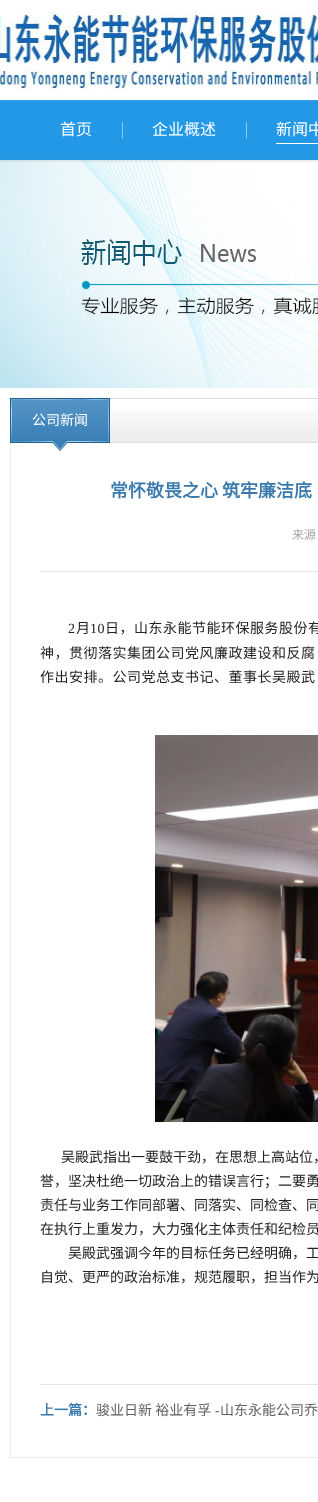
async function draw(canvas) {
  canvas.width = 318
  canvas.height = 1502
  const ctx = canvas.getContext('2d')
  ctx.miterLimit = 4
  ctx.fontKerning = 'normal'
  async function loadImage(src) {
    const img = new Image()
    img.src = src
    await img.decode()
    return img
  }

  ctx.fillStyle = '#fff'
  ctx.fillRect(0, 0, 318, 1502)
  ctx.drawImage(await loadImage('image0.png'), 0, 12, 318, 80)
  ctx.drawImage(await loadImage('image1.png'), 0, 100, 318, 60)
  ctx.font = '16px Noto Sans CJK SC'
  ctx.fillText('首页', 60, 135)
  ctx.fillStyle = '#8ac7f1'
  ctx.fillRect(122, 122, 1, 17)
  ctx.fillStyle = '#fff'
  ctx.fillText('企业概述', 152, 135)
  ctx.fillStyle = '#8ac7f1'
  ctx.fillRect(246, 122, 1, 17)
  ctx.fillStyle = '#fff'
  ctx.fillText('新闻中', 276, 135)
  ctx.fillStyle = '#fefcfd'
  ctx.fillRect(276, 143, 42, 1)
  ctx.drawImage(await loadImage('image2.png'), 0, 160, 318, 228)
  ctx.drawImage(await loadImage('image3.png'), 110, 410, 208, 32)
  ctx.strokeStyle = '#dedede'
  ctx.strokeRect(10.5, 398.5, 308, 44)
  ctx.drawImage(await loadImage('image4.png'), 10, 398, 100, 53)
  ctx.font = '14px Noto Sans CJK SC'
  ctx.fillStyle = '#fff'
  ctx.fillText('公司新闻', 32, 425)
  ctx.fillStyle = '#ececec'
  ctx.fillRect(10, 1457, 308, 1)
  ctx.fillRect(10, 443, 1, 1015)
  ctx.font = 'bold 18px Noto Sans CJK SC'
  ctx.fillStyle = '#3979ac'
  ctx.fillText('常怀敬畏之心 筑牢廉洁底', 110, 497)
  ctx.fillStyle = '#e4e4e4'
  ctx.fillRect(40, 571, 278, 1)
  ctx.font = '12px Noto Sans CJK SC'
  ctx.fillStyle = '#a4a4a4'
  ctx.fillText('来源', 292, 539)
  ctx.letterSpacing = '0.5px'
  ctx.font = '14px Liberation Serif'
  ctx.fillStyle = '#222'
  ctx.fillText('2', 68, 633)
  ctx.font = '14px Noto Sans CJK SC'
  ctx.fillText('月', 76, 633)
  ctx.font = '14px Liberation Serif'
  ctx.fillText('10', 90, 633)
  ctx.font = '14px Noto Sans CJK SC'
  ctx.fillText('日，山东永能节能环保服务股份有', 105, 633)
  ctx.fillText('神，贯彻落实集团公司党风廉政建设和反腐', 40, 658)
  ctx.fillText('作出安排。公司党总支书记、董事长吴殿武', 40, 682)
  ctx.drawImage(await loadImage('image5.png'), 155, 735, 163, 387)
  ctx.letterSpacing = '0px'
  ctx.fillText('吴殿武指出一要鼓干劲，在思想上高站位，', 61, 1162)
  ctx.fillText('誉，坚决杜绝一切政治上的错误言行；二要勇', 40, 1186)
  ctx.fillText('责任与业务工作同部署、同落实、同检查、同', 40, 1210)
  ctx.fillText('在执行上重发力，大力强化主体责任和纪检员', 40, 1234)
  ctx.fillText('吴殿武强调今年的目标任务已经明确，工', 68, 1258)
  ctx.fillText('自觉、更严的政治标准，规范履职，担当作为', 40, 1282)
  ctx.fillStyle = '#e4e4e4'
  ctx.fillRect(40, 1384, 278, 1)
  ctx.font = 'bold 14px Noto Sans CJK SC'
  ctx.fillStyle = '#3979ac'
  ctx.fillText('上一篇：', 40, 1415)
  ctx.font = '14px Noto Sans CJK SC'
  ctx.fillStyle = '#626262'
  ctx.fillText('骏业日新 裕业有孚', 96, 1415)
  ctx.font = '14px Liberation Serif'
  ctx.fillText('-', 215, 1415)
  ctx.font = '14px Noto Sans CJK SC'
  ctx.fillText('山东永能公司乔', 220, 1415)
}

draw(document.querySelector('canvas'))
